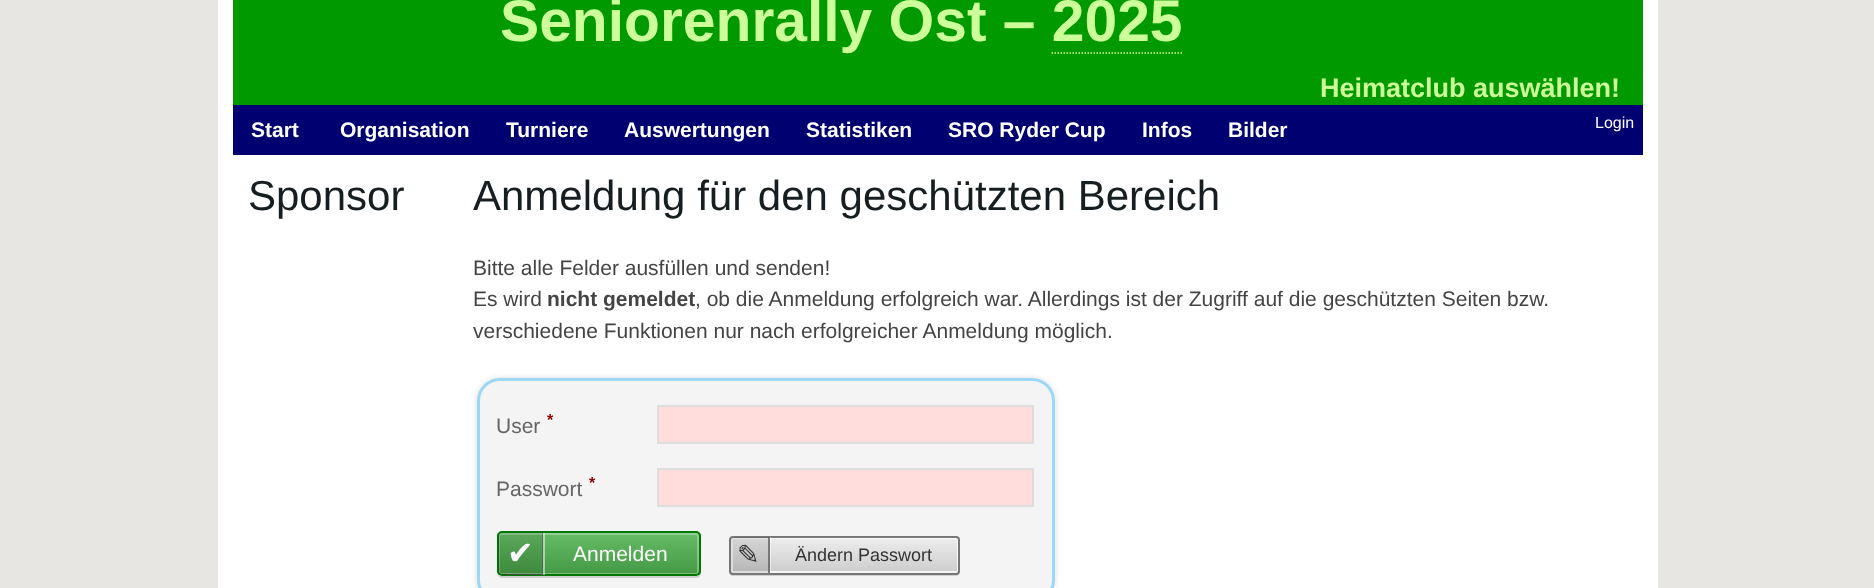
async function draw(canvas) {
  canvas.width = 1874
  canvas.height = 588
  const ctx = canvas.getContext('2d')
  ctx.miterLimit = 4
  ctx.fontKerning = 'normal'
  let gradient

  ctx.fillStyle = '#e7e6e3'
  ctx.fillRect(0, 0, 1874, 588)
  ctx.fillStyle = '#fff'
  ctx.fillRect(218, 0, 1440, 588)
  ctx.fillStyle = '#090'
  ctx.fillRect(233, 0, 1410, 105)
  ctx.font = 'bold 58.75px Liberation Sans'
  ctx.fillStyle = '#cf9'
  ctx.fillText('Seniorenrally Ost – 2025', 500, 41)
  ctx.beginPath()
  ctx.moveTo(1051.5, 53)
  ctx.lineTo(1182, 53)
  ctx.strokeStyle = '#cf9'
  ctx.lineWidth = 1.5
  ctx.setLineDash([1.5, 1.5])
  ctx.stroke()
  ctx.font = 'bold 27px Liberation Sans'
  ctx.fillText('Heimatclub auswählen!', 1320, 97)
  ctx.fillStyle = '#000070'
  ctx.fillRect(233, 105, 1410, 50)
  ctx.font = 'bold 21px Liberation Sans'
  ctx.fillStyle = '#fff'
  ctx.fillText('Start', 251, 137)
  ctx.fillText('Organisation', 340, 137)
  ctx.fillText('Turniere', 506, 137)
  ctx.fillText('Auswertungen', 624, 137)
  ctx.fillText('Statistiken', 806, 137)
  ctx.fillText('SRO Ryder Cup', 948, 137)
  ctx.fillText('Infos', 1142, 137)
  ctx.fillText('Bilder', 1228, 137)
  ctx.font = '16px Liberation Sans'
  ctx.fillText('Login', 1595, 128)
  ctx.font = '42px Liberation Sans'
  ctx.fillStyle = '#161e21'
  ctx.fillText('Sponsor', 248, 210)
  ctx.fillText('Anmeldung für den geschützten Bereich', 473, 210)
  ctx.font = '21px Liberation Sans'
  ctx.fillStyle = '#444'
  ctx.fillText('Bitte alle Felder ausfüllen und senden!', 473, 275)
  ctx.fillText('Es wird', 473, 306)
  ctx.font = 'bold 21px Liberation Sans'
  ctx.fillText('nicht gemeldet', 547, 306)
  ctx.font = '21px Liberation Sans'
  ctx.fillText(', ob die Anmeldung erfolgreich war. Allerdings ist der Zugriff auf die geschützten Seiten bzw.', 695, 306)
  ctx.fillText('verschiedene Funktionen nur nach erfolgreicher Anmeldung möglich.', 473, 338)
  ctx.fillStyle = '#ddd'
  ctx.filter = 'blur(3px)'
  ctx.beginPath()
  ctx.roundRect(477, 378, 578, 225, 23)
  ctx.fill()
  ctx.filter = 'none'
  ctx.fillStyle = '#f4f4f4'
  ctx.beginPath()
  ctx.roundRect(478.5, 379.5, 575, 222, 21.5)
  ctx.fill()
  ctx.strokeStyle = '#9bd8f7'
  ctx.lineWidth = 3
  ctx.setLineDash([])
  ctx.stroke()
  ctx.font = 'bold 16px Liberation Sans'
  ctx.fillStyle = '#800'
  ctx.fillText('*', 547, 425)
  ctx.font = '21px Liberation Sans'
  ctx.fillStyle = '#666'
  ctx.fillText('User', 496, 433)
  ctx.fillStyle = '#fdd'
  ctx.beginPath()
  ctx.rect(658, 406, 375, 37)
  ctx.fill()
  ctx.strokeStyle = '#ddd'
  ctx.lineWidth = 2
  ctx.stroke()
  ctx.font = 'bold 16px Liberation Sans'
  ctx.fillStyle = '#800'
  ctx.fillText('*', 589, 488)
  ctx.font = '21px Liberation Sans'
  ctx.fillStyle = '#666'
  ctx.fillText('Passwort', 496, 496)
  ctx.fillStyle = '#fdd'
  ctx.beginPath()
  ctx.rect(658, 469, 375, 37)
  ctx.fill()
  ctx.stroke()
  ctx.fillStyle = '#cfcfcf'
  ctx.beginPath()
  ctx.moveTo(497, 574)
  ctx.bezierCurveTo(498, 576, 500, 578, 502, 578)
  ctx.lineTo(696, 578)
  ctx.bezierCurveTo(699, 578, 701, 576, 701, 573)
  ctx.lineTo(701, 538)
  ctx.lineTo(700, 536)
  ctx.lineTo(700, 572)
  ctx.bezierCurveTo(700, 574, 699, 576, 696, 576)
  ctx.lineTo(501, 576)
  ctx.bezierCurveTo(499, 576, 498, 575, 497, 574)
  ctx.closePath()
  ctx.fill()
  ctx.save()
  ctx.beginPath()
  ctx.roundRect(497, 531, 204, 45, 5)
  ctx.clip()
  gradient = ctx.createLinearGradient(599, 533, 599, 575)
  gradient.addColorStop(0, '#6b6')
  gradient.addColorStop(1, '#494')
  ctx.fillStyle = gradient
  ctx.fillRect(497, 533, 204, 42)
  ctx.restore()
  ctx.beginPath()
  ctx.roundRect(499, 534, 199, 40, 2)
  ctx.strokeStyle = '#ffffff4d'
  ctx.stroke()
  ctx.beginPath()
  ctx.roundRect(498, 532, 202, 43, 4)
  ctx.strokeStyle = '#070'
  ctx.stroke()
  ctx.fillStyle = '#ffffff80'
  ctx.beginPath()
  ctx.moveTo(504, 574)
  ctx.lineTo(506, 575)
  ctx.lineTo(545, 575)
  ctx.lineTo(545, 533)
  ctx.lineTo(542, 533)
  ctx.lineTo(542, 574)
  ctx.closePath()
  ctx.fill()
  ctx.fillStyle = '#00000080'
  ctx.beginPath()
  ctx.moveTo(503, 574)
  ctx.lineTo(505, 575)
  ctx.lineTo(543, 575)
  ctx.lineTo(543, 533)
  ctx.lineTo(542, 533)
  ctx.lineTo(542, 574)
  ctx.closePath()
  ctx.fill()
  ctx.fillStyle = '#0000001a'
  ctx.beginPath()
  ctx.roundRect(498, 533, 44, 42, [5, 0, 0, 5])
  ctx.fill()
  ctx.font = '32px DejaVu Sans'
  ctx.fillStyle = '#fff'
  ctx.fillText('✔', 507, 564)
  ctx.font = '21px Liberation Sans'
  ctx.fillText('Anmelden', 573, 561)
  ctx.fillStyle = '#cfcfcf'
  ctx.beginPath()
  ctx.moveTo(729, 571)
  ctx.bezierCurveTo(729, 573, 730, 576, 733, 576)
  ctx.lineTo(956, 576)
  ctx.bezierCurveTo(959, 576, 960, 573, 960, 571)
  ctx.bezierCurveTo(960, 573, 958, 574, 956, 574)
  ctx.lineTo(733, 574)
  ctx.bezierCurveTo(731, 574, 729, 573, 729, 571)
  ctx.closePath()
  ctx.fill()
  ctx.save()
  ctx.beginPath()
  ctx.roundRect(729, 536, 231, 39, 4)
  ctx.clip()
  gradient = ctx.createLinearGradient(845, 537, 845, 573)
  gradient.addColorStop(0, '#eee')
  gradient.addColorStop(1, '#ccc')
  ctx.fillStyle = gradient
  ctx.fillRect(729, 537, 231, 36)
  ctx.restore()
  ctx.beginPath()
  ctx.roundRect(732, 538, 226, 34, 1)
  ctx.strokeStyle = '#ffffffcc'
  ctx.stroke()
  ctx.beginPath()
  ctx.roundRect(730, 537, 229, 37, 3)
  ctx.strokeStyle = '#777'
  ctx.stroke()
  ctx.fillStyle = '#ffffff80'
  ctx.fillRect(768, 537, 3, 36)
  ctx.fillStyle = '#00000080'
  ctx.fillRect(768, 537, 2, 36)
  ctx.fillStyle = '#0000001a'
  ctx.beginPath()
  ctx.roundRect(731, 537, 37, 36, [4, 0, 0, 4])
  ctx.fill()
  ctx.font = '27px DejaVu Sans'
  ctx.fillStyle = '#333'
  ctx.fillText('✎', 737, 564)
  ctx.font = '18px Liberation Sans'
  ctx.fillText('Ändern Passwort', 795, 561)
}

draw(document.querySelector('canvas'))
